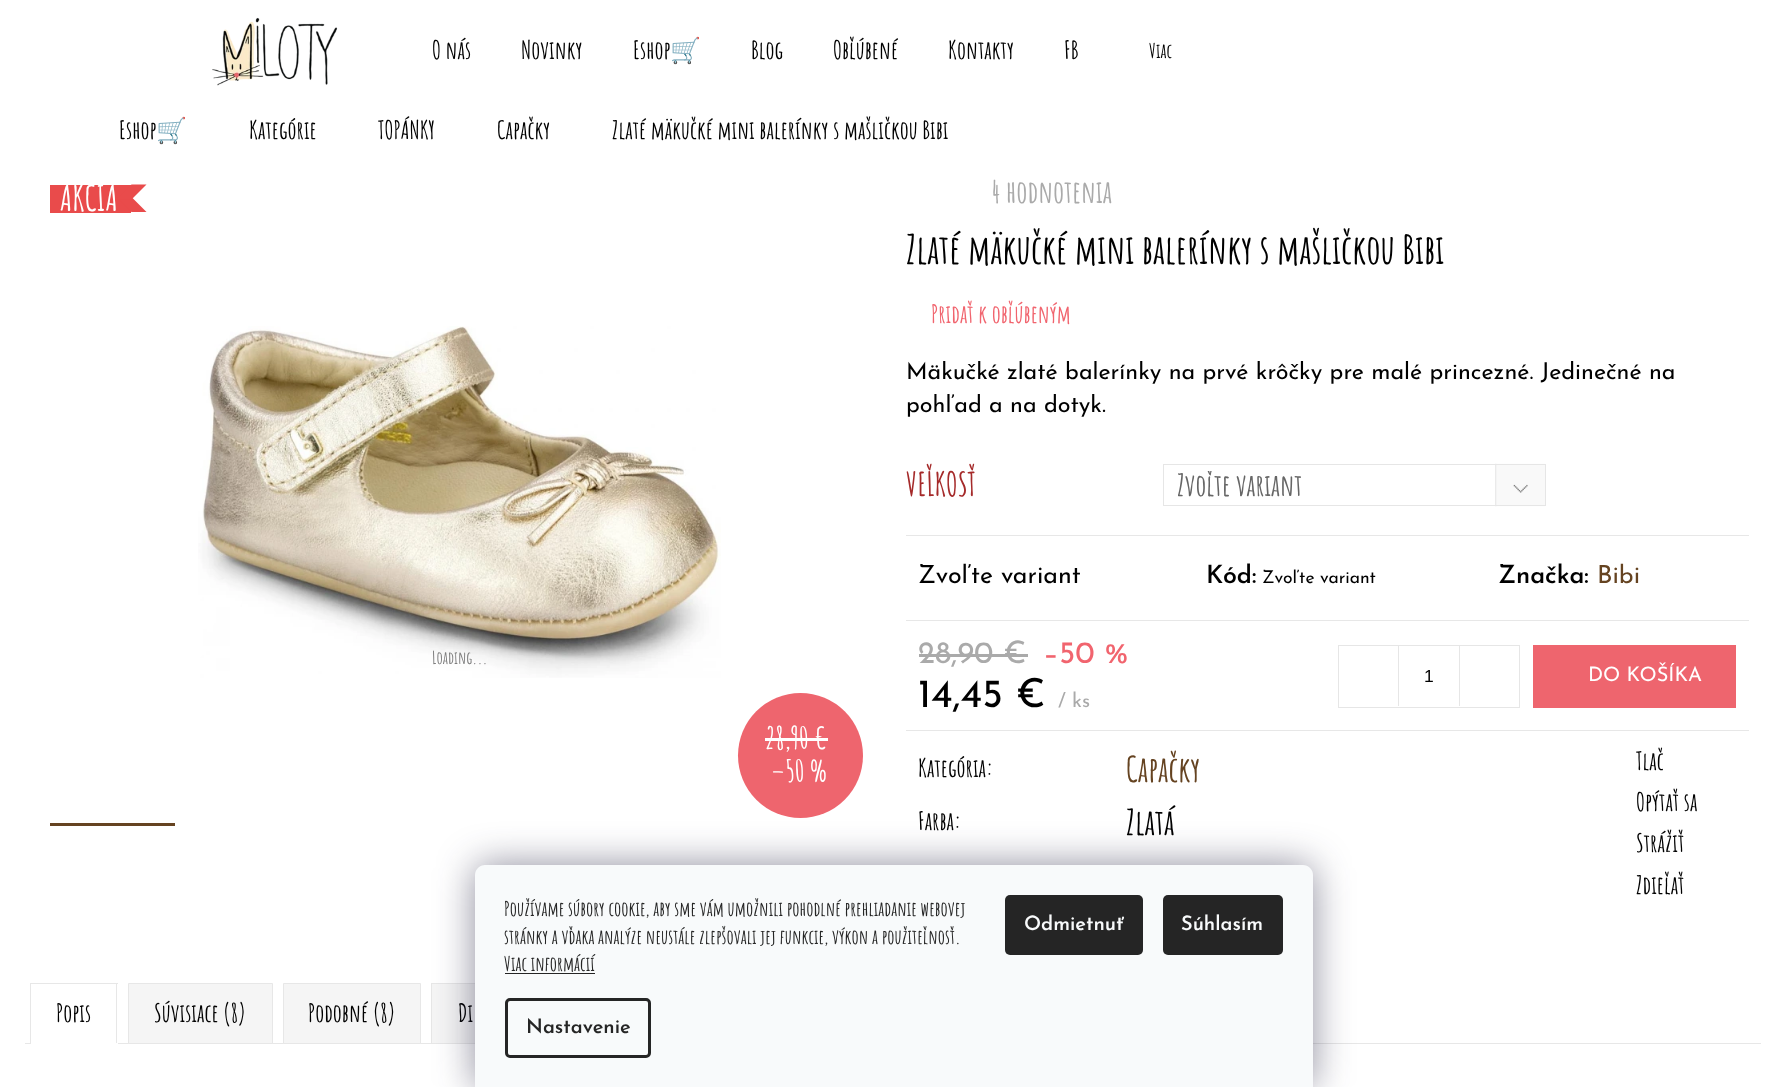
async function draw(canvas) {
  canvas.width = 1786
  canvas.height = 1087
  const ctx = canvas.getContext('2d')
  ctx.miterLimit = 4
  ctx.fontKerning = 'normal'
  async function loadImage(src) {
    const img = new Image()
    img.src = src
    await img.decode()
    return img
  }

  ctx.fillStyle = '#fff'
  ctx.fillRect(0, 0, 1786, 1087)
  ctx.drawImage(await loadImage('image0.png'), 212, 17, 126, 69)
  ctx.font = 'bold 25px Amatic SC'
  ctx.fillStyle = '#000'
  ctx.fillText('O nás', 432, 59)
  ctx.fillText('Novinky', 521, 59)
  ctx.fillText('Eshop', 633, 59)
  ctx.font = 'bold 25px Noto Color Emoji'
  ctx.fillText('🛒', 670, 59)
  ctx.font = 'bold 25px Amatic SC'
  ctx.fillText('Blog', 751, 59)
  ctx.fillText('Obľúbené', 833, 59)
  ctx.fillText('Kontakty', 948, 59)
  ctx.fillText('FB', 1064, 59)
  ctx.font = 'bold 20px Amatic SC'
  ctx.fillText('Viac', 1149, 58)
  ctx.font = 'bold 25px Amatic SC'
  ctx.fillText('Eshop', 119, 139)
  ctx.font = '25px Noto Color Emoji'
  ctx.fillText('🛒', 156, 139)
  ctx.font = 'bold 25px Amatic SC'
  ctx.fillText('Kategórie', 249, 139)
  ctx.fillText('TOPÁNKY', 378, 139)
  ctx.fillText('Capačky', 497, 139)
  ctx.fillText('Zlaté mäkučké mini balerínky s mašličkou Bibi', 612, 139)
  ctx.fillStyle = '#e94b4b'
  ctx.fillRect(50, 185, 81, 28)
  ctx.font = 'bold 35px Amatic SC'
  ctx.fillStyle = '#fff'
  ctx.fillText('AKCIA', 60, 211)
  ctx.fillStyle = '#e94b4b'
  ctx.beginPath()
  ctx.moveTo(116.5, 197)
  ctx.lineTo(131.5, 197)
  ctx.lineTo(146.5, 212)
  ctx.lineTo(131.5, 212)
  ctx.closePath()
  ctx.fill()
  ctx.beginPath()
  ctx.moveTo(131.5, 184.5)
  ctx.lineTo(146.5, 184.5)
  ctx.lineTo(131.5, 199.5)
  ctx.lineTo(116.5, 199.5)
  ctx.closePath()
  ctx.fill()
  ctx.drawImage(await loadImage('image1.png'), 198, 326, 523, 352)
  ctx.font = 'bold 17.5px Amatic SC'
  ctx.fillStyle = '#7d7d7d'
  ctx.fillText('Loading...', 432, 664)
  ctx.fillStyle = '#ee656e'
  ctx.beginPath()
  ctx.arc(800.5, 755.5, 62.5, 0, 2 * Math.PI)
  ctx.fill()
  ctx.font = 'bold 30px Amatic SC'
  ctx.fillStyle = '#fff'
  ctx.fillText('28,90 €', 765, 749)
  ctx.fillRect(765, 738, 63, 3)
  ctx.fillText('–50 %', 771, 782)
  ctx.fillStyle = '#654321'
  ctx.fillRect(50, 823, 125, 3)
  ctx.font = 'bold 31px Amatic SC'
  ctx.fillStyle = '#aaa'
  ctx.fillText('4 hodnotenia', 991, 203)
  ctx.font = 'bold 40px Amatic SC'
  ctx.fillStyle = '#000'
  ctx.fillText('Zlaté mäkučké mini balerínky s mašličkou Bibi', 906, 264)
  ctx.font = 'bold 25px Amatic SC'
  ctx.fillStyle = '#f1646e'
  ctx.fillText('Pridať k obľúbeným', 931, 323)
  ctx.font = '23.3px Josefin Sans'
  ctx.fillStyle = '#000'
  ctx.fillText('Mäkučké zlaté balerínky na prvé krôčky pre malé princezné. Jedinečné na', 906, 379)
  ctx.fillText('pohľad a na dotyk.', 906, 412)
  ctx.font = 'bold 32.5px Amatic SC'
  ctx.fillStyle = '#a52a2a'
  ctx.fillText('VEĽKOSŤ', 906, 496)
  ctx.drawImage(await loadImage('image2.png'), 1495, 463, 50, 44)
  ctx.strokeStyle = '#e6e6e6'
  ctx.strokeRect(1163.5, 464.5, 382, 41)
  ctx.save()
  ctx.beginPath()
  ctx.rect(1178, 471, 311, 28)
  ctx.clip()
  ctx.font = 'bold 30px Amatic SC'
  ctx.fillStyle = '#666'
  ctx.fillText('Zvoľte variant', 1177, 496)
  ctx.restore()
  ctx.fillStyle = '#e7e7e7'
  ctx.fillRect(906, 535, 843, 1)
  ctx.fillRect(906, 620, 843, 1)
  ctx.font = '25px Josefin Sans'
  ctx.fillStyle = '#000'
  ctx.fillText('Zvoľte variant', 918, 583)
  ctx.font = '600 25px Josefin Sans'
  ctx.fillText('Kód:', 1206, 583)
  ctx.font = '17.5px Josefin Sans'
  ctx.fillText('Zvoľte variant', 1262, 583)
  ctx.font = '600 25px Josefin Sans'
  ctx.fillText('Značka:', 1498, 583)
  ctx.font = '25px Josefin Sans'
  ctx.fillStyle = '#654321'
  ctx.fillText('Bibi', 1597, 583)
  ctx.fillStyle = '#e7e7e7'
  ctx.fillRect(906, 730, 843, 1)
  ctx.font = '31px Josefin Sans'
  ctx.fillStyle = '#aaa'
  ctx.fillText('28,90 €', 918, 663)
  ctx.fillRect(919, 654, 109, 3)
  ctx.fillStyle = '#f1646e'
  ctx.fillText('–50 %', 1043, 663)
  ctx.font = '40px Josefin Sans'
  ctx.fillStyle = '#000'
  ctx.fillText('14,45 €', 918, 707)
  ctx.font = '20px Josefin Sans'
  ctx.fillStyle = '#aaa'
  ctx.fillText('/ ks', 1058, 707)
  ctx.strokeRect(1338.5, 645.5, 181, 62)
  ctx.fillStyle = '#e6e6e6'
  ctx.fillRect(1398, 646, 1, 60)
  ctx.font = '17.5px Liberation Sans'
  ctx.fillStyle = '#000'
  ctx.fillText('1', 1424, 682)
  ctx.fillStyle = '#e6e6e6'
  ctx.fillRect(1459, 646, 1, 60)
  ctx.fillStyle = '#ee656e'
  ctx.fillRect(1533, 645, 203, 63)
  ctx.font = '20px Josefin Sans'
  ctx.fillStyle = '#fff'
  ctx.fillText('DO KOŠÍKA', 1588, 681)
  ctx.font = 'bold 25px Amatic SC'
  ctx.fillStyle = '#000'
  ctx.fillText('Kategória:', 918, 777)
  ctx.font = 'bold 35px Amatic SC'
  ctx.fillStyle = '#654321'
  ctx.fillText('Capačky', 1126, 782)
  ctx.font = 'bold 25px Amatic SC'
  ctx.fillStyle = '#000'
  ctx.fillText('Farba:', 918, 830)
  ctx.font = 'bold 35px Amatic SC'
  ctx.fillText('Zlatá', 1126, 835)
  ctx.font = 'bold 25px Amatic SC'
  ctx.fillText('Tlač', 1636, 770)
  ctx.fillText('Opýtať sa', 1636, 811)
  ctx.fillText('Strážiť', 1636, 852)
  ctx.fillText('Zdieľať', 1636, 894)
  ctx.fillStyle = '#e7e7e7'
  ctx.fillRect(25, 1043, 1736, 1)
  ctx.fillRect(30, 983, 88, 1)
  ctx.fillRect(116, 983, 1, 61)
  ctx.fillStyle = '#fff'
  ctx.fillRect(30, 1043, 88, 1)
  ctx.fillStyle = '#e7e7e7'
  ctx.fillRect(30, 983, 1, 61)
  ctx.fillStyle = '#000'
  ctx.fillText('Popis', 56, 1022)
  ctx.fillStyle = '#f5f5f5'
  ctx.beginPath()
  ctx.rect(128.5, 983.5, 144, 60)
  ctx.fill()
  ctx.strokeStyle = '#e7e7e7'
  ctx.stroke()
  ctx.fillStyle = '#000'
  ctx.fillText('Súvisiace (8)', 154, 1022)
  ctx.fillStyle = '#f5f5f5'
  ctx.beginPath()
  ctx.rect(283.5, 983.5, 137, 60)
  ctx.fill()
  ctx.stroke()
  ctx.fillStyle = '#000'
  ctx.fillText('Podobné (8)', 308, 1022)
  ctx.fillStyle = '#f5f5f5'
  ctx.fillRect(432, 984, 43, 59)
  ctx.strokeRect(431.5, 983.5, 111, 60)
  ctx.fillStyle = '#000'
  ctx.fillText('Di', 458, 1022)
  ctx.fillStyle = '#1b193980'
  ctx.filter = 'blur(19px)'
  ctx.beginPath()
  ctx.roundRect(475, 865, 838, 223, 10)
  ctx.fill()
  ctx.filter = 'none'
  ctx.fillStyle = '#f8fafb'
  ctx.beginPath()
  ctx.moveTo(485, 865)
  ctx.lineTo(1303, 865)
  ctx.bezierCurveTo(1308.5, 865, 1313, 869.5, 1313, 875)
  ctx.lineTo(1313, 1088)
  ctx.lineTo(475, 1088)
  ctx.lineTo(475, 875)
  ctx.bezierCurveTo(475, 869.5, 479.5, 865, 485, 865)
  ctx.closePath()
  ctx.fill()
  ctx.font = 'bold 20px Amatic SC'
  ctx.fillStyle = '#252525'
  ctx.fillText('Používame súbory cookie, aby sme vám umožnili pohodlné prehliadanie webovej', 504, 916)
  ctx.fillText('stránky a vďaka analýze neustále zlepšovali jej funkcie, výkon a použiteľnosť.', 504, 944)
  ctx.fillText('Viac informácií', 504, 971)
  ctx.fillRect(505, 973, 90, 1)
  ctx.beginPath()
  ctx.roundRect(506.5, 999.5, 143, 57, 3.5)
  ctx.strokeStyle = '#252525'
  ctx.lineWidth = 3
  ctx.stroke()
  ctx.font = '600 20px Josefin Sans'
  ctx.fillText('Nastavenie', 526, 1033)
  ctx.beginPath()
  ctx.roundRect(1005, 895, 138, 60, 5)
  ctx.fill()
  ctx.fillStyle = '#f8fafb'
  ctx.fillText('Odmietnuť', 1024, 930)
  ctx.fillStyle = '#252525'
  ctx.beginPath()
  ctx.roundRect(1163, 895, 120, 60, 5)
  ctx.fill()
  ctx.fillStyle = '#f8fafb'
  ctx.fillText('Súhlasím', 1181, 930)
}

draw(document.querySelector('canvas'))
